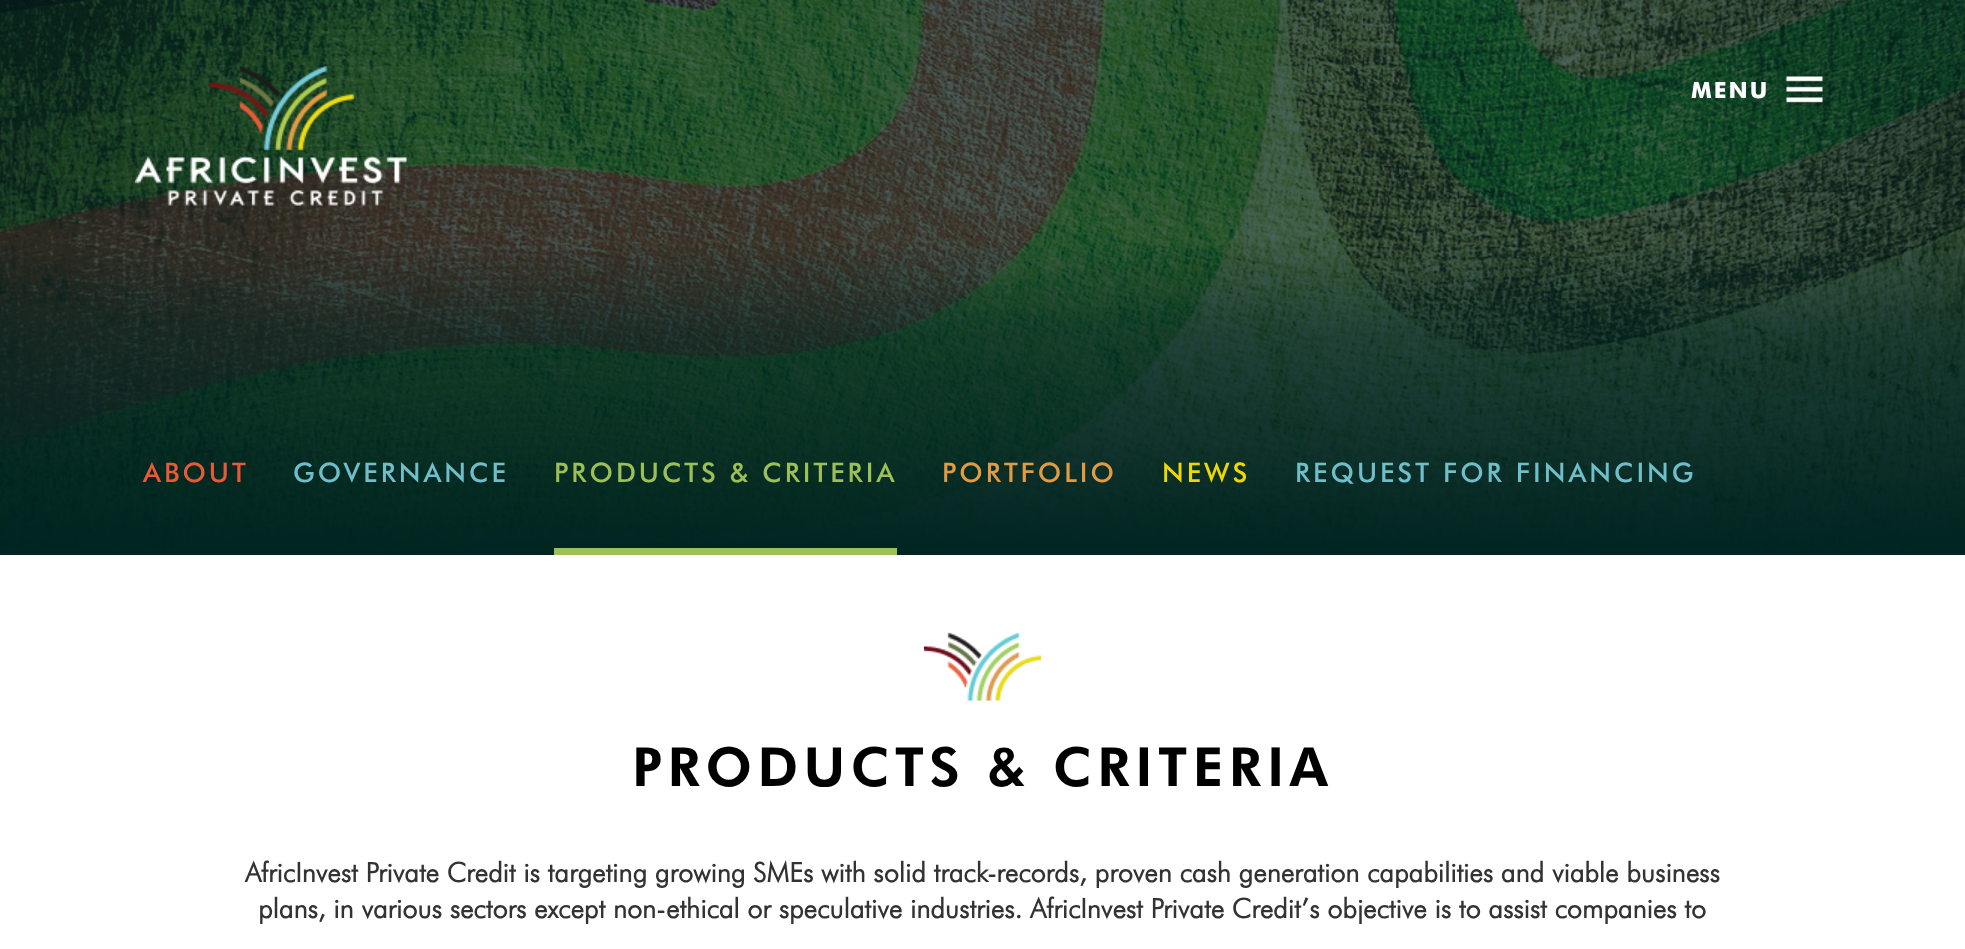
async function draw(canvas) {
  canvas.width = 1965
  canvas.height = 949
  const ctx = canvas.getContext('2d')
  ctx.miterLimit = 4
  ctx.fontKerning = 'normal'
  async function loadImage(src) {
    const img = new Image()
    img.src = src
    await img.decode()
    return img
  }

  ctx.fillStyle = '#fff'
  ctx.fillRect(0, 0, 1965, 949)
  ctx.drawImage(await loadImage('image0.png'), 0, 0, 1965, 555)
  ctx.drawImage(await loadImage('image1.png'), 135, 65, 272, 141)
  ctx.drawImage(await loadImage('image2.png'), 1786, 75, 40, 31)
  ctx.letterSpacing = '2px'
  ctx.font = 'bold 22.5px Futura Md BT'
  ctx.fillText('MENU', 1691, 98)
  ctx.letterSpacing = '3px'
  ctx.font = '500 27px Futura Md BT'
  ctx.fillStyle = '#e75a38'
  ctx.fillText('ABOUT', 143, 482)
  ctx.fillStyle = '#6fbec9'
  ctx.fillText('GOVERNANCE', 293, 482)
  ctx.fillStyle = '#9cc057'
  ctx.fillRect(554, 548, 343, 7)
  ctx.fillText('PRODUCTS & CRITERIA', 554, 482)
  ctx.fillStyle = '#e19c43'
  ctx.fillText('PORTFOLIO', 942, 482)
  ctx.fillStyle = '#edd900'
  ctx.fillText('NEWS', 1162, 482)
  ctx.fillStyle = '#6fbec9'
  ctx.fillText('REQUEST FOR FINANCING', 1295, 482)
  ctx.drawImage(await loadImage('image3.png'), 924, 632, 117, 69)
  ctx.letterSpacing = '5.4px'
  ctx.font = '900 54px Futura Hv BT'
  ctx.fillStyle = '#000'
  ctx.fillText('PRODUCTS & CRITERIA', 632, 786)
  ctx.letterSpacing = '0px'
  ctx.font = 'bold 27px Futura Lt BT'
  ctx.fillStyle = '#333'
  ctx.fillText('AfricInvest Private Credit is targeting growing SMEs with solid track-records, proven cash generation capabilities and viable business', 245, 882)
  ctx.fillText('plans, in various sectors except non-ethical or speculative industries. AfricInvest Private Credit’s objective is to assist companies to', 258, 918)
}

draw(document.querySelector('canvas'))
